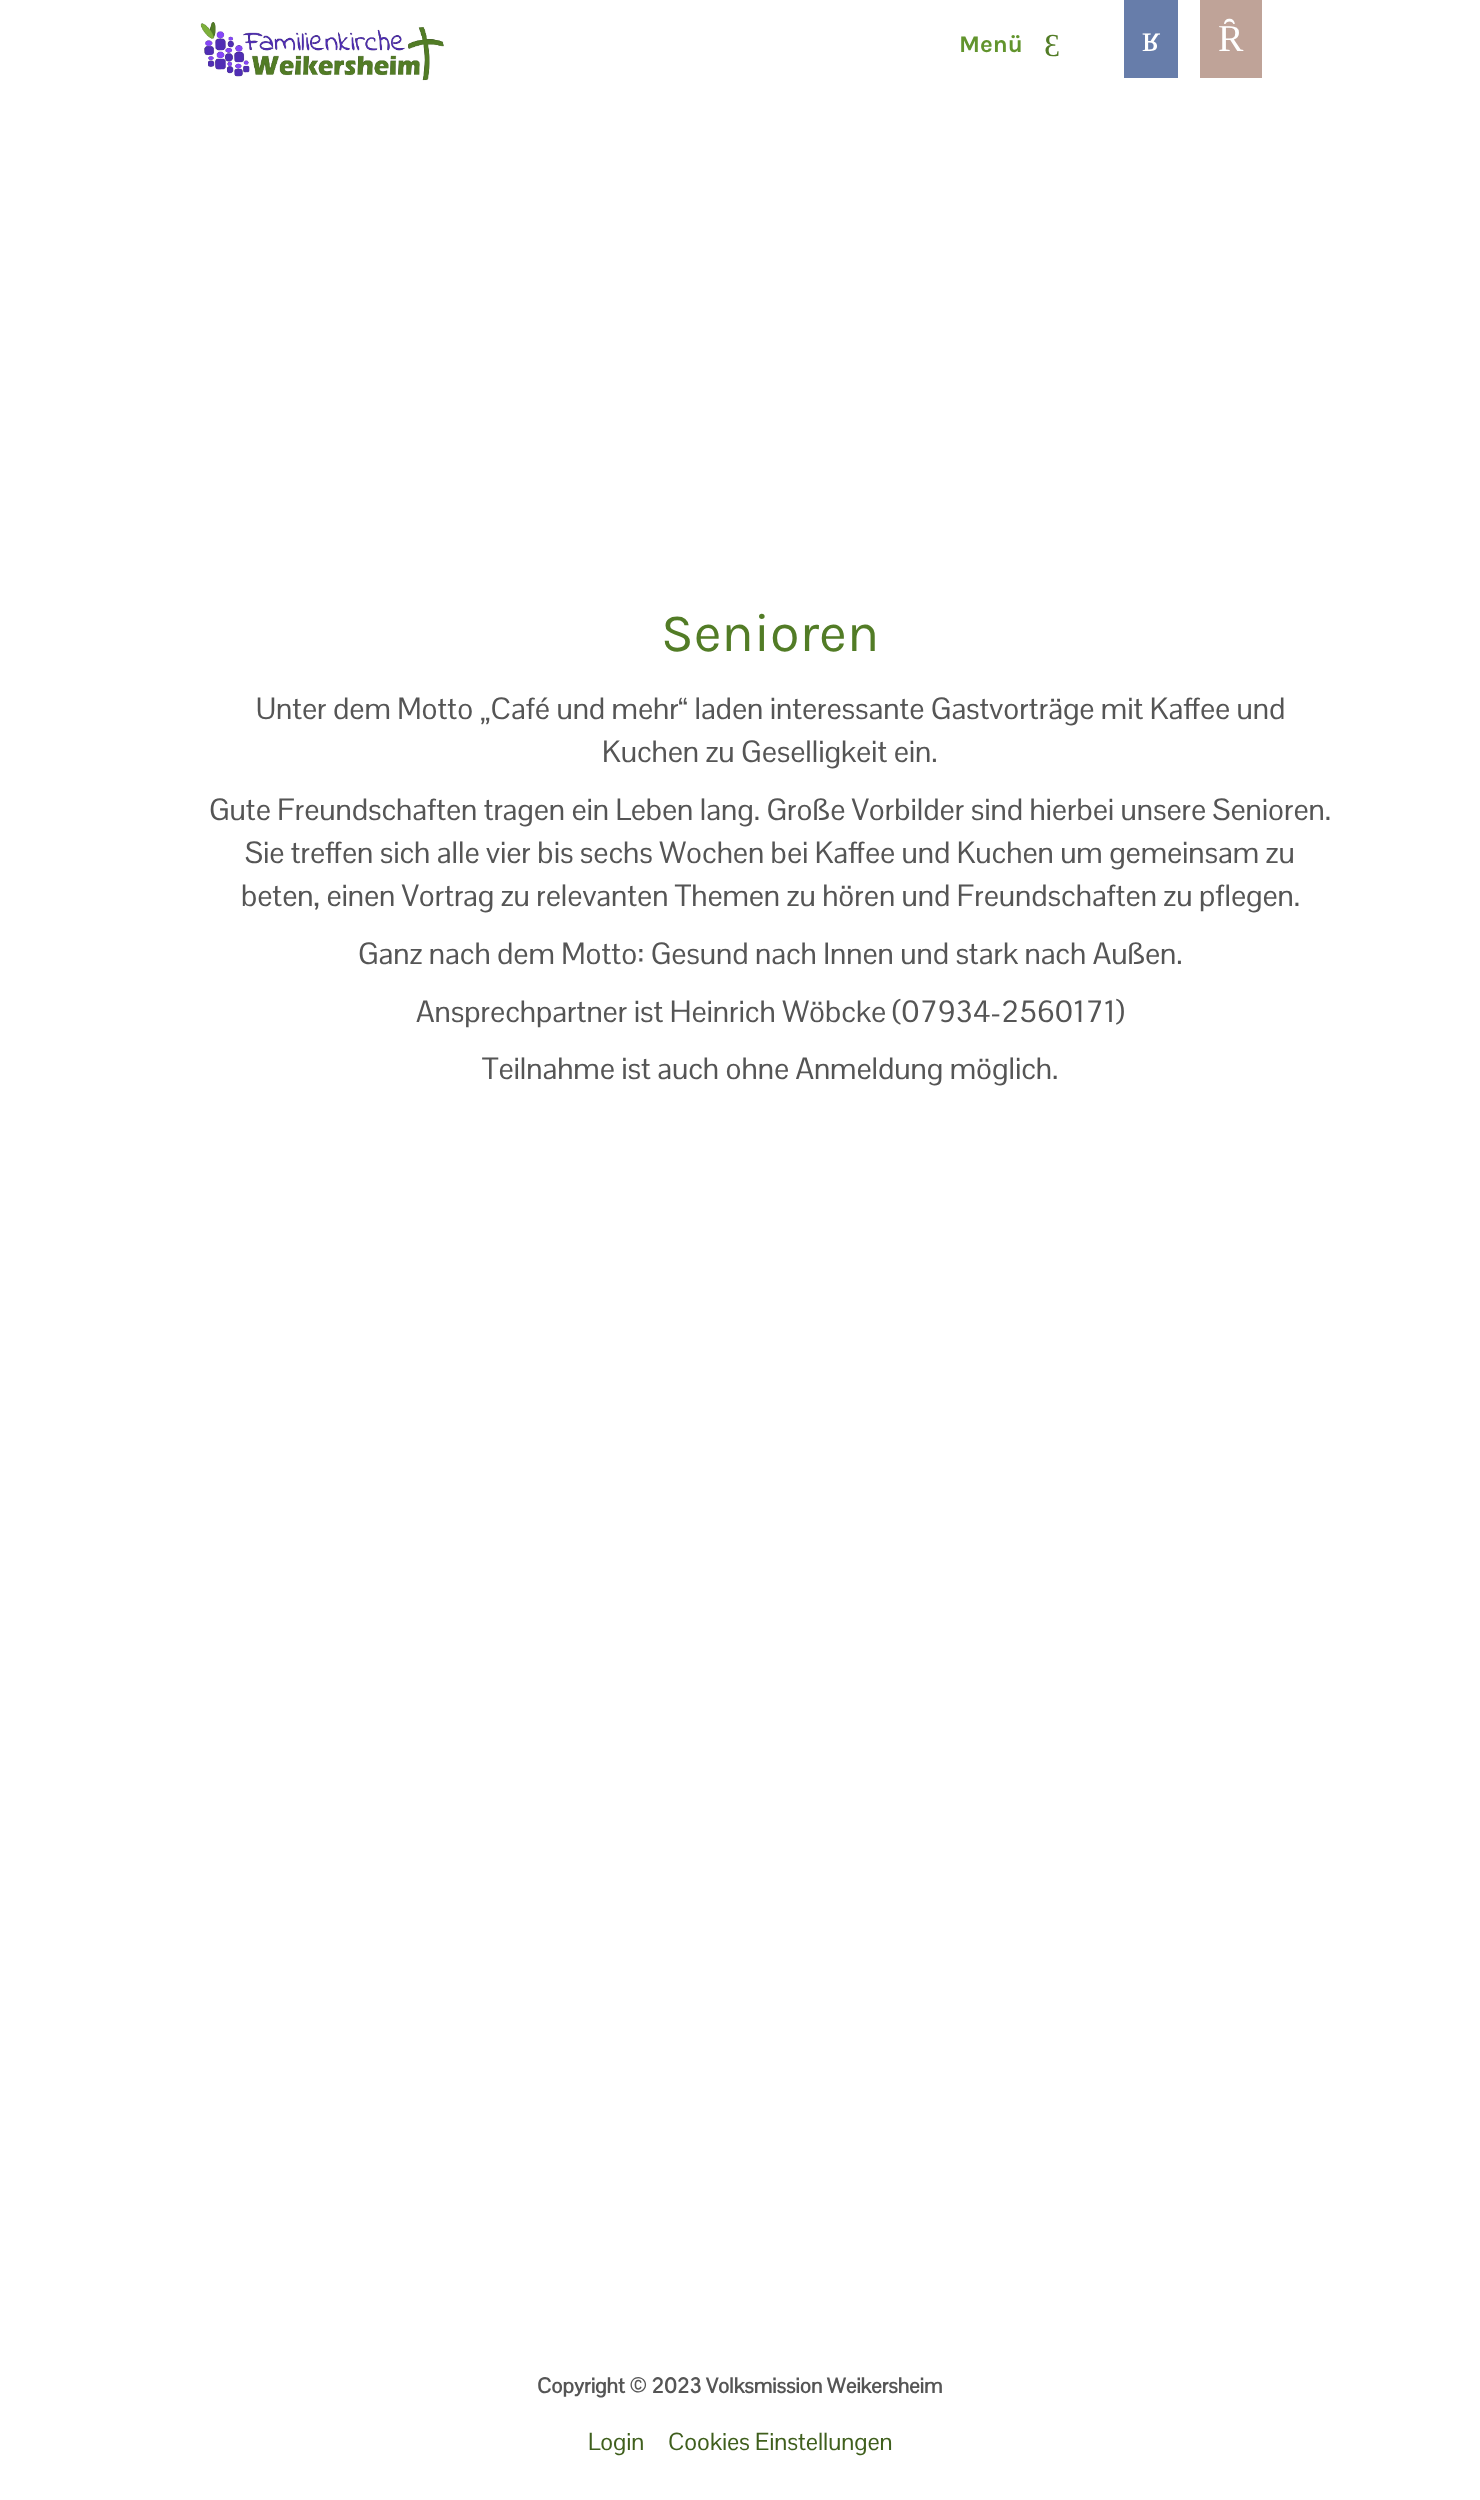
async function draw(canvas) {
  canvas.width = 1480
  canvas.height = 2500
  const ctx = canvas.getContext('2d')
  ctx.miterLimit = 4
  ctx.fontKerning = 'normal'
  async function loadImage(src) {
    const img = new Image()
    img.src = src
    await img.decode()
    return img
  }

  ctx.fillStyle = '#fff'
  ctx.fillRect(0, 0, 1480, 2500)
  ctx.drawImage(await loadImage('image0.png'), 200, 22, 244, 59)
  ctx.font = 'bold 24px Karla'
  ctx.fillStyle = '#62942d'
  ctx.fillText('Menü', 959, 52)
  ctx.font = '32px Liberation Serif'
  ctx.fillStyle = '#527c26'
  ctx.fillText('Ɛ', 1044, 56)
  ctx.fillStyle = '#677daa'
  ctx.fillRect(1124, 0, 54, 78)
  ctx.font = '38px Liberation Serif'
  ctx.fillStyle = '#fff'
  ctx.fillText('ʁ', 1142, 51)
  ctx.fillStyle = '#bfa398'
  ctx.fillRect(1200, 0, 62, 78)
  ctx.fillStyle = '#fff'
  ctx.fillText('Ȓ', 1218, 51)
  ctx.font = '54px Karla'
  ctx.fillStyle = '#527c26'
  ctx.fillText('Senioren', 661, 651)
  ctx.font = '30px Pontano Sans'
  ctx.fillStyle = '#555'
  ctx.fillText('Unter dem Motto „Café und mehr“ laden interessante Gastvorträge mit Kaffee und', 256, 719)
  ctx.fillText('Kuchen zu Geselligkeit ein.', 602, 762)
  ctx.fillText('Gute Freundschaften tragen ein Leben lang. Große Vorbilder sind hierbei unsere Senioren.', 209, 820)
  ctx.fillText('Sie treffen sich alle vier bis sechs Wochen bei Kaffee und Kuchen um gemeinsam zu', 245, 863)
  ctx.fillText('beten, einen Vortrag zu relevanten Themen zu hören und Freundschaften zu pflegen.', 241, 906)
  ctx.fillText('Ganz nach dem Motto: Gesund nach Innen und stark nach Außen.', 358, 964)
  ctx.fillText('Ansprechpartner ist Heinrich Wöbcke (07934-2560171)', 416, 1022)
  ctx.fillText('Teilnahme ist auch ohne Anmeldung möglich.', 482, 1079)
  ctx.font = 'bold 21px Pontano Sans'
  ctx.fillText('Copyright © 2023 Volksmission Weikersheim', 537, 2393)
  ctx.font = '24px Pontano Sans'
  ctx.fillStyle = '#3f5f1d'
  ctx.fillText('Login', 588, 2450)
  ctx.fillText('Cookies Einstellungen', 668, 2450)
}

draw(document.querySelector('canvas'))
